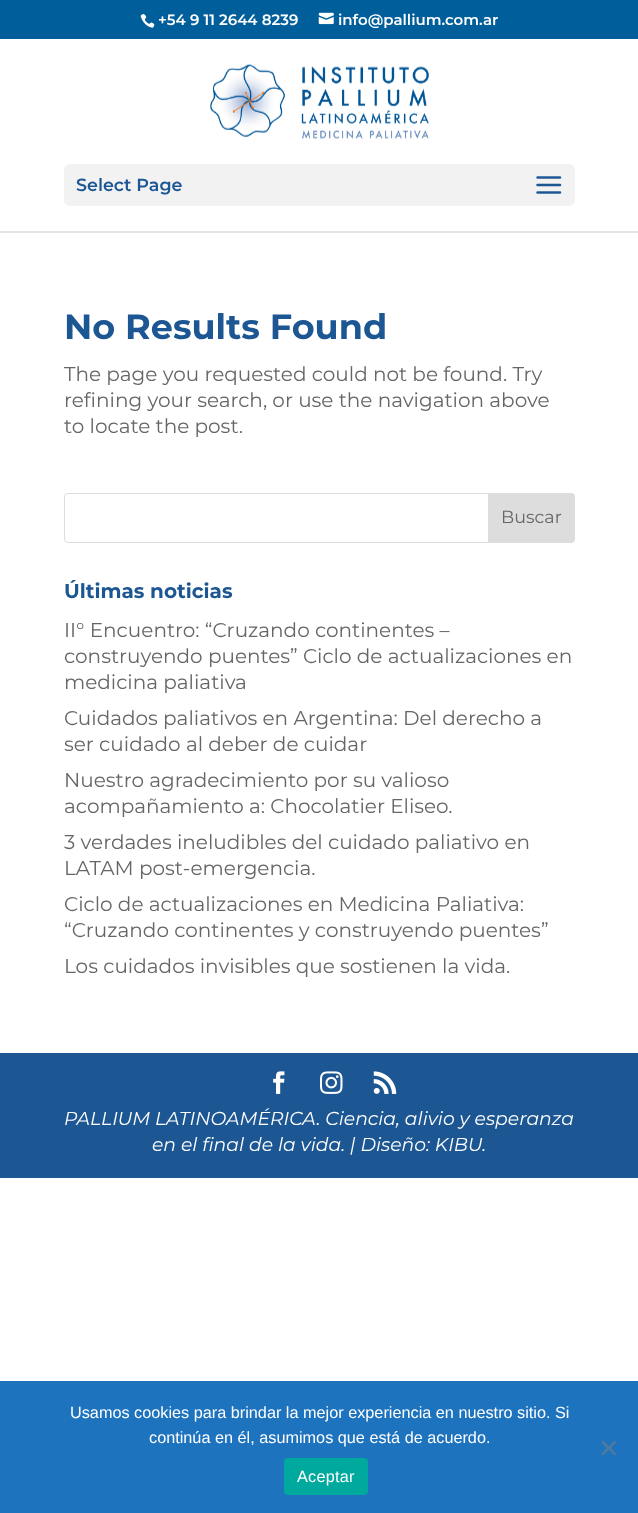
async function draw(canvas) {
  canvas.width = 638
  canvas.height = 1513
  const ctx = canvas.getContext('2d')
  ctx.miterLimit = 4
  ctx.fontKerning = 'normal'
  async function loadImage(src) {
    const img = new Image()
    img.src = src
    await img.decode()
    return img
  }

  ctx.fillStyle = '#fff'
  ctx.fillRect(0, 0, 638, 1513)
  ctx.fillStyle = '#005e9a'
  ctx.fillRect(0, 0, 638, 39)
  ctx.drawImage(await loadImage('image0.png'), 140, 14, 15, 14)
  ctx.font = '600 15px Montserrat'
  ctx.fillStyle = '#fff'
  ctx.fillText('+54 9 11 2644 8239', 158, 25)
  ctx.drawImage(await loadImage('image1.png'), 318, 12, 16, 13)
  ctx.fillText('info@pallium.com.ar', 338, 25)
  ctx.fillStyle = '#e6e6e6'
  ctx.beginPath()
  ctx.moveTo(0, 231)
  ctx.lineTo(0, 233)
  ctx.lineTo(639, 233)
  ctx.lineTo(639, 40)
  ctx.lineTo(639, 231)
  ctx.closePath()
  ctx.fill()
  ctx.drawImage(await loadImage('image2.png'), 210, 64, 219, 75)
  ctx.fillStyle = '#f2f2f2'
  ctx.beginPath()
  ctx.roundRect(64, 164, 511, 42, 6)
  ctx.fill()
  ctx.font = '600 17.5px Montserrat'
  ctx.fillStyle = '#1c5693'
  ctx.fillText('Select Page', 76, 191)
  ctx.drawImage(await loadImage('image3.png'), 536, 176, 26, 18)
  ctx.font = 'bold 35px Montserrat'
  ctx.fillText('No Results Found', 64, 339)
  ctx.font = '20px Montserrat'
  ctx.fillStyle = '#666'
  ctx.fillText('The page you requested could not be found. Try', 64, 381)
  ctx.fillText('refining your search, or use the navigation above', 64, 407)
  ctx.fillText('to locate the post.', 64, 433)
  ctx.beginPath()
  ctx.roundRect(64.5, 493.5, 510, 49, 3.5)
  ctx.strokeStyle = '#ddd'
  ctx.stroke()
  ctx.fillStyle = '#ddd'
  ctx.beginPath()
  ctx.roundRect(488.5, 493.5, 86, 49, [0, 3.5, 3.5, 0])
  ctx.fill()
  ctx.stroke()
  ctx.font = '17.5px Montserrat'
  ctx.fillStyle = '#666'
  ctx.fillText('Buscar', 501, 523)
  ctx.font = 'bold 20px Montserrat'
  ctx.fillStyle = '#1c5693'
  ctx.fillText('Últimas noticias', 64, 598)
  ctx.font = '20px Montserrat'
  ctx.fillStyle = '#666'
  ctx.fillText('II° Encuentro: “Cruzando continentes –', 64, 637)
  ctx.fillText('construyendo puentes” Ciclo de actualizaciones en', 64, 663)
  ctx.fillText('medicina paliativa', 64, 689)
  ctx.fillText('Cuidados paliativos en Argentina: Del derecho a', 64, 725)
  ctx.fillText('ser cuidado al deber de cuidar', 64, 751)
  ctx.fillText('Nuestro agradecimiento por su valioso', 64, 787)
  ctx.fillText('acompañamiento a: Chocolatier Eliseo.', 64, 813)
  ctx.fillText('3 verdades ineludibles del cuidado paliativo en', 64, 849)
  ctx.fillText('LATAM post-emergencia.', 64, 875)
  ctx.fillText('Ciclo de actualizaciones en Medicina Paliativa:', 64, 911)
  ctx.fillText('“Cruzando continentes y construyendo puentes”', 64, 937)
  ctx.fillText('Los cuidados invisibles que sostienen la vida.', 64, 973)
  ctx.fillStyle = '#1c5693'
  ctx.fillRect(0, 1053, 638, 125)
  ctx.drawImage(await loadImage('image4.png'), 273, 1071, 12, 23)
  ctx.drawImage(await loadImage('image5.png'), 320, 1071, 23, 23)
  ctx.drawImage(await loadImage('image6.png'), 373, 1071, 24, 23)
  ctx.font = 'italic 18.75px Montserrat'
  ctx.fillStyle = '#fff'
  ctx.fillText('PALLIUM LATINOAMÉRICA. Ciencia, alivio y esperanza', 64, 1125)
  ctx.fillText('en el final de la vida. | Diseño: KIBU.', 152, 1151)
  ctx.fillStyle = '#1e73be'
  ctx.fillRect(0, 1381, 638, 132)
  ctx.font = '16.25px Liberation Sans'
  ctx.fillStyle = '#fff'
  ctx.fillText('Usamos cookies para brindar la mejor experiencia en nuestro sitio. Si', 70, 1418)
  ctx.fillText('continúa en él, asumimos que está de acuerdo.', 149, 1443)
  ctx.fillStyle = '#4f7a9f'
  ctx.beginPath()
  ctx.moveTo(614.5, 1440.5)
  ctx.lineTo(616.5, 1442.5)
  ctx.lineTo(603, 1455.5)
  ctx.lineTo(601, 1454)
  ctx.closePath()
  ctx.fill()
  ctx.beginPath()
  ctx.moveTo(601, 1442.5)
  ctx.lineTo(603, 1440.5)
  ctx.lineTo(616.5, 1454)
  ctx.lineTo(614.5, 1455.5)
  ctx.closePath()
  ctx.fill()
  ctx.fillStyle = '#00a99d'
  ctx.beginPath()
  ctx.roundRect(284, 1458, 84, 37, 4)
  ctx.fill()
  ctx.letterSpacing = '0.25px'
  ctx.fillStyle = '#fff'
  ctx.fillText('Aceptar', 297, 1482)
}

draw(document.querySelector('canvas'))
